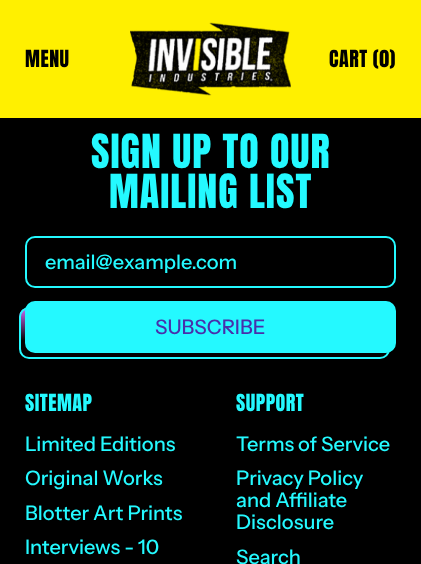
async function draw(canvas) {
  canvas.width = 421
  canvas.height = 564
  const ctx = canvas.getContext('2d')
  ctx.miterLimit = 4
  ctx.fontKerning = 'normal'
  async function loadImage(src) {
    const img = new Image()
    img.src = src
    await img.decode()
    return img
  }
  let gradient

  ctx.fillStyle = '#000'
  ctx.fillRect(0, 0, 421, 564)
  ctx.fillStyle = '#fff000'
  ctx.fillRect(0, 0, 421, 118)
  ctx.letterSpacing = '0.5px'
  ctx.font = '20px Anton'
  ctx.fillStyle = '#000'
  ctx.fillText('MENU', 25, 67)
  ctx.drawImage(await loadImage('image0.png'), 130, 22, 161, 74)
  ctx.fillText('CART (0)', 329, 67)
  ctx.letterSpacing = '1px'
  ctx.font = '40px Anton'
  ctx.fillStyle = '#24f9ff'
  ctx.fillText('SIGN UP TO OUR', 91, 168)
  ctx.fillText('MAILING LIST', 109, 208)
  ctx.beginPath()
  ctx.roundRect(26, 237, 369, 50, 9)
  ctx.strokeStyle = '#24f9ff'
  ctx.lineWidth = 2
  ctx.stroke()
  ctx.letterSpacing = '0px'
  ctx.font = '500 20px Instrument Sans'
  ctx.fillText('email@example.com', 45, 269)
  ctx.save()
  ctx.beginPath()
  ctx.roundRect(19, 307, 371, 52, 10)
  ctx.clip()
  gradient = ctx.createLinearGradient(205, 357, 205, 309)
  gradient.addColorStop(0.34, '#030303')
  gradient.addColorStop(1, '#c466ee')
  ctx.fillStyle = gradient
  ctx.fillRect(19, 309, 371, 48)
  ctx.restore()
  ctx.beginPath()
  ctx.roundRect(20, 308, 369, 50, 9)
  ctx.stroke()
  ctx.beginPath()
  ctx.roundRect(26, 302, 369, 50, 9)
  ctx.fill()
  ctx.stroke()
  ctx.fillStyle = '#492fab'
  ctx.fillText('SUBSCRIBE', 155, 334)
  ctx.letterSpacing = '0.5px'
  ctx.font = '20px Anton'
  ctx.fillStyle = '#24f9ff'
  ctx.fillText('SITEMAP', 25, 411)
  ctx.letterSpacing = '0px'
  ctx.font = '500 20px Instrument Sans'
  ctx.fillText('Limited Editions', 25, 451)
  ctx.fillText('Original Works', 25, 485)
  ctx.fillText('Blotter Art Prints', 25, 520)
  ctx.fillText('Interviews - 10', 25, 554)
  ctx.letterSpacing = '0.5px'
  ctx.font = '20px Anton'
  ctx.fillText('SUPPORT', 236, 411)
  ctx.letterSpacing = '0px'
  ctx.font = '500 20px Instrument Sans'
  ctx.fillText('Terms of Service', 236, 451)
  ctx.fillText('Privacy Policy', 236, 485)
  ctx.fillText('and Affiliate', 236, 507)
  ctx.fillText('Disclosure', 236, 529)
  ctx.fillText('Search', 236, 564)
}

draw(document.querySelector('canvas'))
